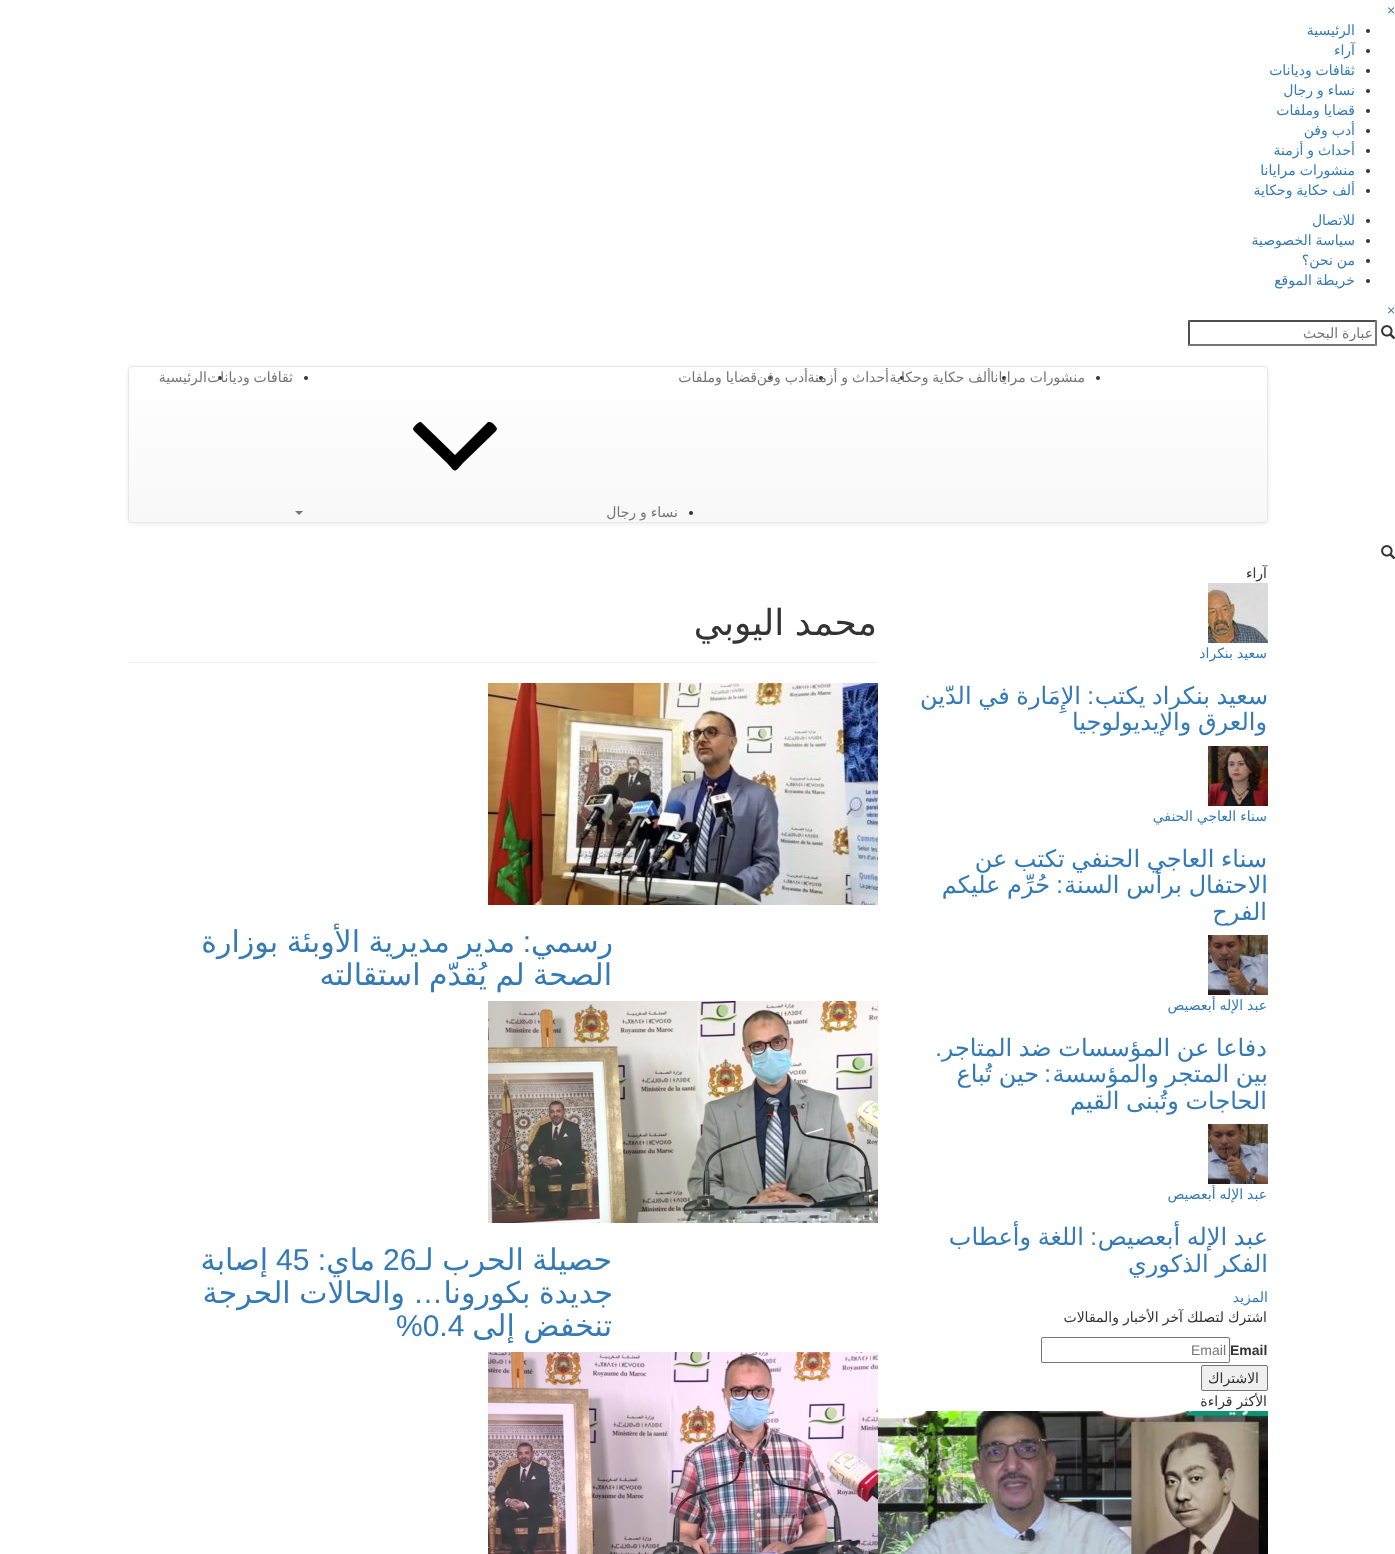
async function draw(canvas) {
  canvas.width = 1395
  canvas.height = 1554
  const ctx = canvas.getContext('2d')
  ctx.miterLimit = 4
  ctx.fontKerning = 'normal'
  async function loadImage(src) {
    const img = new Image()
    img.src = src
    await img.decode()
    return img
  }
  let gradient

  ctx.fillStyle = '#fff'
  ctx.fillRect(0, 0, 1395, 1554)
  ctx.font = '14px Liberation Sans'
  ctx.fillStyle = '#337ab7'
  ctx.fillText('×', 1387, 15)
  ctx.fillStyle = '#333'
  ctx.beginPath()
  ctx.arc(1368, 31, 2, 0, 2 * Math.PI)
  ctx.fill()
  ctx.direction = 'rtl'
  ctx.font = '14px DejaVu Sans'
  ctx.fillStyle = '#337ab7'
  ctx.fillText('الرئيسية', 1355, 35)
  ctx.fillStyle = '#333'
  ctx.beginPath()
  ctx.arc(1368, 51, 2, 0, 2 * Math.PI)
  ctx.fill()
  ctx.fillStyle = '#337ab7'
  ctx.fillText('آراء', 1355, 55)
  ctx.fillStyle = '#333'
  ctx.beginPath()
  ctx.arc(1368, 71, 2, 0, 2 * Math.PI)
  ctx.fill()
  ctx.wordSpacing = '-0.5px'
  ctx.fillStyle = '#337ab7'
  ctx.fillText('ثقافات وديانات', 1355, 75)
  ctx.fillStyle = '#333'
  ctx.beginPath()
  ctx.arc(1368, 91, 2, 0, 2 * Math.PI)
  ctx.fill()
  ctx.fillStyle = '#337ab7'
  ctx.fillText('نساء و رجال', 1355, 95)
  ctx.fillStyle = '#333'
  ctx.beginPath()
  ctx.arc(1368, 111, 2, 0, 2 * Math.PI)
  ctx.fill()
  ctx.fillStyle = '#337ab7'
  ctx.fillText('قضايا وملفات', 1355, 115)
  ctx.fillStyle = '#333'
  ctx.beginPath()
  ctx.arc(1368, 131, 2, 0, 2 * Math.PI)
  ctx.fill()
  ctx.fillStyle = '#337ab7'
  ctx.fillText('أدب وفن', 1355, 135)
  ctx.fillStyle = '#333'
  ctx.beginPath()
  ctx.arc(1368, 151, 2, 0, 2 * Math.PI)
  ctx.fill()
  ctx.fillStyle = '#337ab7'
  ctx.fillText('أحداث و أزمنة', 1355, 155)
  ctx.fillStyle = '#333'
  ctx.beginPath()
  ctx.arc(1368, 171, 2, 0, 2 * Math.PI)
  ctx.fill()
  ctx.fillStyle = '#337ab7'
  ctx.fillText('منشورات مرايانا', 1355, 175)
  ctx.fillStyle = '#333'
  ctx.beginPath()
  ctx.arc(1368, 191, 2, 0, 2 * Math.PI)
  ctx.fill()
  ctx.fillStyle = '#337ab7'
  ctx.fillText('ألف حكاية وحكاية', 1355, 195)
  ctx.fillStyle = '#333'
  ctx.beginPath()
  ctx.arc(1368, 221, 2, 0, 2 * Math.PI)
  ctx.fill()
  ctx.wordSpacing = '0px'
  ctx.fillStyle = '#337ab7'
  ctx.fillText('للاتصال', 1355, 225)
  ctx.fillStyle = '#333'
  ctx.beginPath()
  ctx.arc(1368, 241, 2, 0, 2 * Math.PI)
  ctx.fill()
  ctx.wordSpacing = '-0.5px'
  ctx.fillStyle = '#337ab7'
  ctx.fillText('سياسة الخصوصية', 1355, 245)
  ctx.fillStyle = '#333'
  ctx.beginPath()
  ctx.arc(1368, 261, 2, 0, 2 * Math.PI)
  ctx.fill()
  ctx.fillStyle = '#337ab7'
  ctx.fillText('من نحن؟', 1355, 265)
  ctx.fillStyle = '#333'
  ctx.beginPath()
  ctx.arc(1368, 281, 2, 0, 2 * Math.PI)
  ctx.fill()
  ctx.fillStyle = '#337ab7'
  ctx.fillText('خريطة الموقع', 1355, 285)
  ctx.wordSpacing = '0px'
  ctx.direction = 'ltr'
  ctx.font = '14px Liberation Sans'
  ctx.fillText('×', 1387, 315)
  ctx.drawImage(await loadImage('image0.png'), 1381, 325, 14, 14)
  ctx.fillStyle = '#4f4f4f'
  ctx.beginPath()
  ctx.moveTo(1188, 320)
  ctx.lineTo(1377, 320)
  ctx.lineTo(1375, 322)
  ctx.lineTo(1190, 322)
  ctx.closePath()
  ctx.fill()
  ctx.fillStyle = '#767676'
  ctx.beginPath()
  ctx.moveTo(1377, 320)
  ctx.lineTo(1377, 346)
  ctx.lineTo(1375, 344)
  ctx.lineTo(1375, 322)
  ctx.closePath()
  ctx.fill()
  ctx.beginPath()
  ctx.moveTo(1377, 346)
  ctx.lineTo(1188, 346)
  ctx.lineTo(1190, 344)
  ctx.lineTo(1375, 344)
  ctx.closePath()
  ctx.fill()
  ctx.fillStyle = '#4f4f4f'
  ctx.beginPath()
  ctx.moveTo(1188, 346)
  ctx.lineTo(1188, 320)
  ctx.lineTo(1190, 322)
  ctx.lineTo(1190, 344)
  ctx.closePath()
  ctx.fill()
  ctx.save()
  ctx.beginPath()
  ctx.rect(1196, 325, 177, 16)
  ctx.clip()
  ctx.wordSpacing = '-0.5px'
  ctx.direction = 'rtl'
  ctx.font = '14px DejaVu Sans'
  ctx.fillStyle = '#757575'
  ctx.fillText('عبارة البحث', 1373, 338)
  ctx.restore()
  ctx.fillStyle = '#00000012'
  ctx.filter = 'blur(2.5px)'
  ctx.beginPath()
  ctx.roundRect(128, 367, 1140, 157, 4)
  ctx.fill()
  ctx.filter = 'none'
  ctx.save()
  ctx.beginPath()
  ctx.roundRect(128, 366, 1140, 157, 4)
  ctx.clip()
  gradient = ctx.createLinearGradient(698, 367, 698, 522)
  gradient.addColorStop(0, '#fff')
  gradient.addColorStop(1, '#f8f8f8')
  ctx.fillStyle = gradient
  ctx.fillRect(128, 367, 1140, 155)
  ctx.restore()
  ctx.beginPath()
  ctx.roundRect(128.5, 366.5, 1139, 156, 3.5)
  ctx.strokeStyle = '#e7e7e7'
  ctx.stroke()
  ctx.fillStyle = '#333'
  ctx.beginPath()
  ctx.arc(1098, 378, 2, 0, 2 * Math.PI)
  ctx.fill()
  ctx.beginPath()
  ctx.arc(1004, 378, 2, 0, 2 * Math.PI)
  ctx.fill()
  ctx.wordSpacing = '-0.5px'
  ctx.direction = 'rtl'
  ctx.font = '14px DejaVu Sans'
  ctx.fillStyle = '#757575'
  ctx.fillText('منشورات مرايانا', 1085, 382)
  ctx.fillStyle = '#333'
  ctx.beginPath()
  ctx.arc(902, 378, 2, 0, 2 * Math.PI)
  ctx.fill()
  ctx.fillStyle = '#757575'
  ctx.fillText('ألف حكاية وحكاية', 991, 382)
  ctx.fillStyle = '#333'
  ctx.beginPath()
  ctx.arc(821, 378, 2, 0, 2 * Math.PI)
  ctx.fill()
  ctx.fillStyle = '#757575'
  ctx.fillText('أحداث و أزمنة', 889, 382)
  ctx.fillStyle = '#333'
  ctx.beginPath()
  ctx.arc(770, 378, 2, 0, 2 * Math.PI)
  ctx.fill()
  ctx.fillStyle = '#757575'
  ctx.fillText('أدب وفن', 808, 382)
  ctx.fillText('قضايا وملفات', 757, 382)
  ctx.fillStyle = '#333'
  ctx.beginPath()
  ctx.arc(306, 378, 2, 0, 2 * Math.PI)
  ctx.fill()
  ctx.beginPath()
  ctx.arc(220, 378, 2, 0, 2 * Math.PI)
  ctx.fill()
  ctx.fillStyle = '#757575'
  ctx.fillText('ثقافات وديانات', 293, 382)
  ctx.wordSpacing = '0px'
  ctx.fillText('الرئيسية', 207, 382)
  ctx.fillStyle = '#333'
  ctx.beginPath()
  ctx.arc(691, 513, 2, 0, 2 * Math.PI)
  ctx.fill()
  ctx.fillStyle = '#000'
  ctx.beginPath()
  ctx.moveTo(497, 429)
  ctx.lineTo(496, 431)
  ctx.lineTo(463, 463)
  ctx.bezierCurveTo(454, 473, 456, 473, 447, 463)
  ctx.lineTo(414, 431)
  ctx.lineTo(413, 429)
  ctx.bezierCurveTo(413, 427, 419, 421, 421, 422)
  ctx.lineTo(455, 455)
  ctx.lineTo(488, 422)
  ctx.lineTo(490, 422)
  ctx.bezierCurveTo(492, 422, 497, 427, 497, 429)
  ctx.closePath()
  ctx.fill()
  ctx.wordSpacing = '-0.5px'
  ctx.fillStyle = '#757575'
  ctx.fillText('نساء و رجال', 678, 517)
  ctx.fillStyle = '#777'
  ctx.beginPath()
  ctx.moveTo(295, 511)
  ctx.lineTo(303, 511)
  ctx.lineTo(299, 515)
  ctx.closePath()
  ctx.fill()
  ctx.drawImage(await loadImage('image0.png'), 1381, 545, 14, 14)
  ctx.wordSpacing = '0px'
  ctx.fillStyle = '#333'
  ctx.fillText('آراء', 1267, 578)
  ctx.drawImage(await loadImage('image1.png'), 1208, 583, 60, 60)
  ctx.wordSpacing = '-0.5px'
  ctx.fillStyle = '#337ab7'
  ctx.fillText('سعيد بنكراد', 1267, 658)
  ctx.wordSpacing = '-1px'
  ctx.font = '24px DejaVu Sans'
  ctx.fillText('سعيد بنكراد يكتب', 1268, 704)
  ctx.wordSpacing = '0px'
  ctx.font = '24px Liberation Sans'
  ctx.fillText(':', 1094, 704)
  ctx.wordSpacing = '-1px'
  ctx.font = '24px DejaVu Sans'
  ctx.fillText('الإِمَارة في الدّين', 1081, 704)
  ctx.fillText('والعرق والإيديولوجيا', 1267, 730)
  ctx.drawImage(await loadImage('image2.png'), 1208, 746, 60, 60)
  ctx.wordSpacing = '-0.5px'
  ctx.font = '14px DejaVu Sans'
  ctx.fillText('سناء العاجي الحنفي', 1267, 821)
  ctx.wordSpacing = '-1px'
  ctx.font = '24px DejaVu Sans'
  ctx.fillText('سناء العاجي الحنفي تكتب عن', 1267, 867)
  ctx.fillText('الاحتفال برأس السنة', 1268, 893)
  ctx.wordSpacing = '0px'
  ctx.font = '24px Liberation Sans'
  ctx.fillText(':', 1063, 893)
  ctx.wordSpacing = '-1px'
  ctx.font = '24px DejaVu Sans'
  ctx.fillText('حُرِّم عليكم', 1050, 893)
  ctx.wordSpacing = '0px'
  ctx.fillText('الفرح', 1267, 920)
  ctx.drawImage(await loadImage('image3.png'), 1208, 935, 60, 60)
  ctx.wordSpacing = '-0.5px'
  ctx.font = '14px DejaVu Sans'
  ctx.fillText('عبد الإله أبعصيص', 1267, 1010)
  ctx.wordSpacing = '-1px'
  ctx.font = '24px DejaVu Sans'
  ctx.fillText('دفاعا عن المؤسسات ضد المتاجر', 1267, 1056)
  ctx.wordSpacing = '0px'
  ctx.font = '24px Liberation Sans'
  ctx.fillText('.', 942, 1056)
  ctx.wordSpacing = '-1px'
  ctx.font = '24px DejaVu Sans'
  ctx.fillText('بين المتجر والمؤسسة', 1268, 1082)
  ctx.wordSpacing = '0px'
  ctx.font = '24px Liberation Sans'
  ctx.fillText(':', 1051, 1082)
  ctx.wordSpacing = '-1px'
  ctx.font = '24px DejaVu Sans'
  ctx.fillText('حين تُباع', 1039, 1082)
  ctx.fillText('الحاجات وتُبنى القيم', 1267, 1109)
  ctx.drawImage(await loadImage('image3.png'), 1208, 1124, 60, 60)
  ctx.wordSpacing = '-0.5px'
  ctx.font = '14px DejaVu Sans'
  ctx.fillText('عبد الإله أبعصيص', 1267, 1199)
  ctx.wordSpacing = '-1px'
  ctx.font = '24px DejaVu Sans'
  ctx.fillText('عبد الإله أبعصيص', 1268, 1245)
  ctx.wordSpacing = '0px'
  ctx.font = '24px Liberation Sans'
  ctx.fillText(':', 1097, 1245)
  ctx.wordSpacing = '-1px'
  ctx.font = '24px DejaVu Sans'
  ctx.fillText('اللغة وأعطاب', 1084, 1245)
  ctx.fillText('الفكر الذكوري', 1268, 1272)
  ctx.wordSpacing = '0px'
  ctx.font = '14px DejaVu Sans'
  ctx.fillText('المزيد', 1268, 1302)
  ctx.wordSpacing = '-0.5px'
  ctx.fillStyle = '#333'
  ctx.fillText('اشترك لتصلك آخر الأخبار والمقالات', 1267, 1322)
  ctx.wordSpacing = '0px'
  ctx.direction = 'ltr'
  ctx.font = 'bold 14px Liberation Sans'
  ctx.fillText('Email', 1230, 1355)
  ctx.beginPath()
  ctx.roundRect(1041.5, 1337.5, 188, 25, 1.5)
  ctx.strokeStyle = '#767676'
  ctx.stroke()
  ctx.font = '14px Liberation Sans'
  ctx.fillStyle = '#757575'
  ctx.fillText('Email', 1191, 1355)
  ctx.fillStyle = '#efefef'
  ctx.beginPath()
  ctx.roundRect(1201.5, 1365.5, 66, 25, 1.5)
  ctx.fill()
  ctx.stroke()
  ctx.direction = 'rtl'
  ctx.font = '14px DejaVu Sans'
  ctx.fillStyle = '#333'
  ctx.fillText('الاشتراك', 1259, 1383)
  ctx.wordSpacing = '-0.5px'
  ctx.fillText('الأكثر قراءة', 1267, 1406)
  ctx.drawImage(await loadImage('image4.png'), 878, 1411, 390, 143)
  ctx.fillStyle = '#eee'
  ctx.fillRect(128, 662, 750, 1)
  ctx.wordSpacing = '-1px'
  ctx.font = '36px DejaVu Sans'
  ctx.fillStyle = '#333'
  ctx.fillText('محمد اليوبي', 877, 635)
  ctx.drawImage(await loadImage('image5.png'), 488, 683, 390, 222)
  ctx.wordSpacing = '0px'
  ctx.font = '30px DejaVu Sans'
  ctx.fillStyle = '#337ab7'
  ctx.fillText('رسمي', 613, 952)
  ctx.font = '30px Liberation Sans'
  ctx.fillText(':', 531, 952)
  ctx.wordSpacing = '-1px'
  ctx.font = '30px DejaVu Sans'
  ctx.fillText('مدير مديرية الأوبئة بوزارة', 515, 952)
  ctx.fillText('الصحة لم يُقدّم استقالته', 612, 985)
  ctx.drawImage(await loadImage('image6.png'), 488, 1001, 390, 222)
  ctx.fillText('حصيلة الحرب لـ', 612, 1270)
  ctx.wordSpacing = '0px'
  ctx.direction = 'ltr'
  ctx.font = '30px Liberation Sans'
  ctx.fillText('26', 383, 1270)
  ctx.direction = 'rtl'
  ctx.font = '30px DejaVu Sans'
  ctx.fillText('ماي', 375, 1270)
  ctx.font = '30px Liberation Sans'
  ctx.fillText(':', 326, 1270)
  ctx.direction = 'ltr'
  ctx.fillText('45', 276, 1270)
  ctx.direction = 'rtl'
  ctx.font = '30px DejaVu Sans'
  ctx.fillText('إصابة', 268, 1270)
  ctx.wordSpacing = '-1px'
  ctx.fillText('جديدة بكورونا', 613, 1303)
  ctx.wordSpacing = '0px'
  ctx.font = '30px Liberation Sans'
  ctx.fillText('…', 443, 1303)
  ctx.wordSpacing = '-1px'
  ctx.font = '30px DejaVu Sans'
  ctx.fillText('والحالات الحرجة', 405, 1303)
  ctx.fillText('تنخفض إلى', 612, 1336)
  ctx.wordSpacing = '0px'
  ctx.direction = 'ltr'
  ctx.font = '30px Liberation Sans'
  ctx.fillText('%0.4', 396, 1336)
  ctx.drawImage(await loadImage('image7.png'), 488, 1352, 390, 202)
}

draw(document.querySelector('canvas'))
